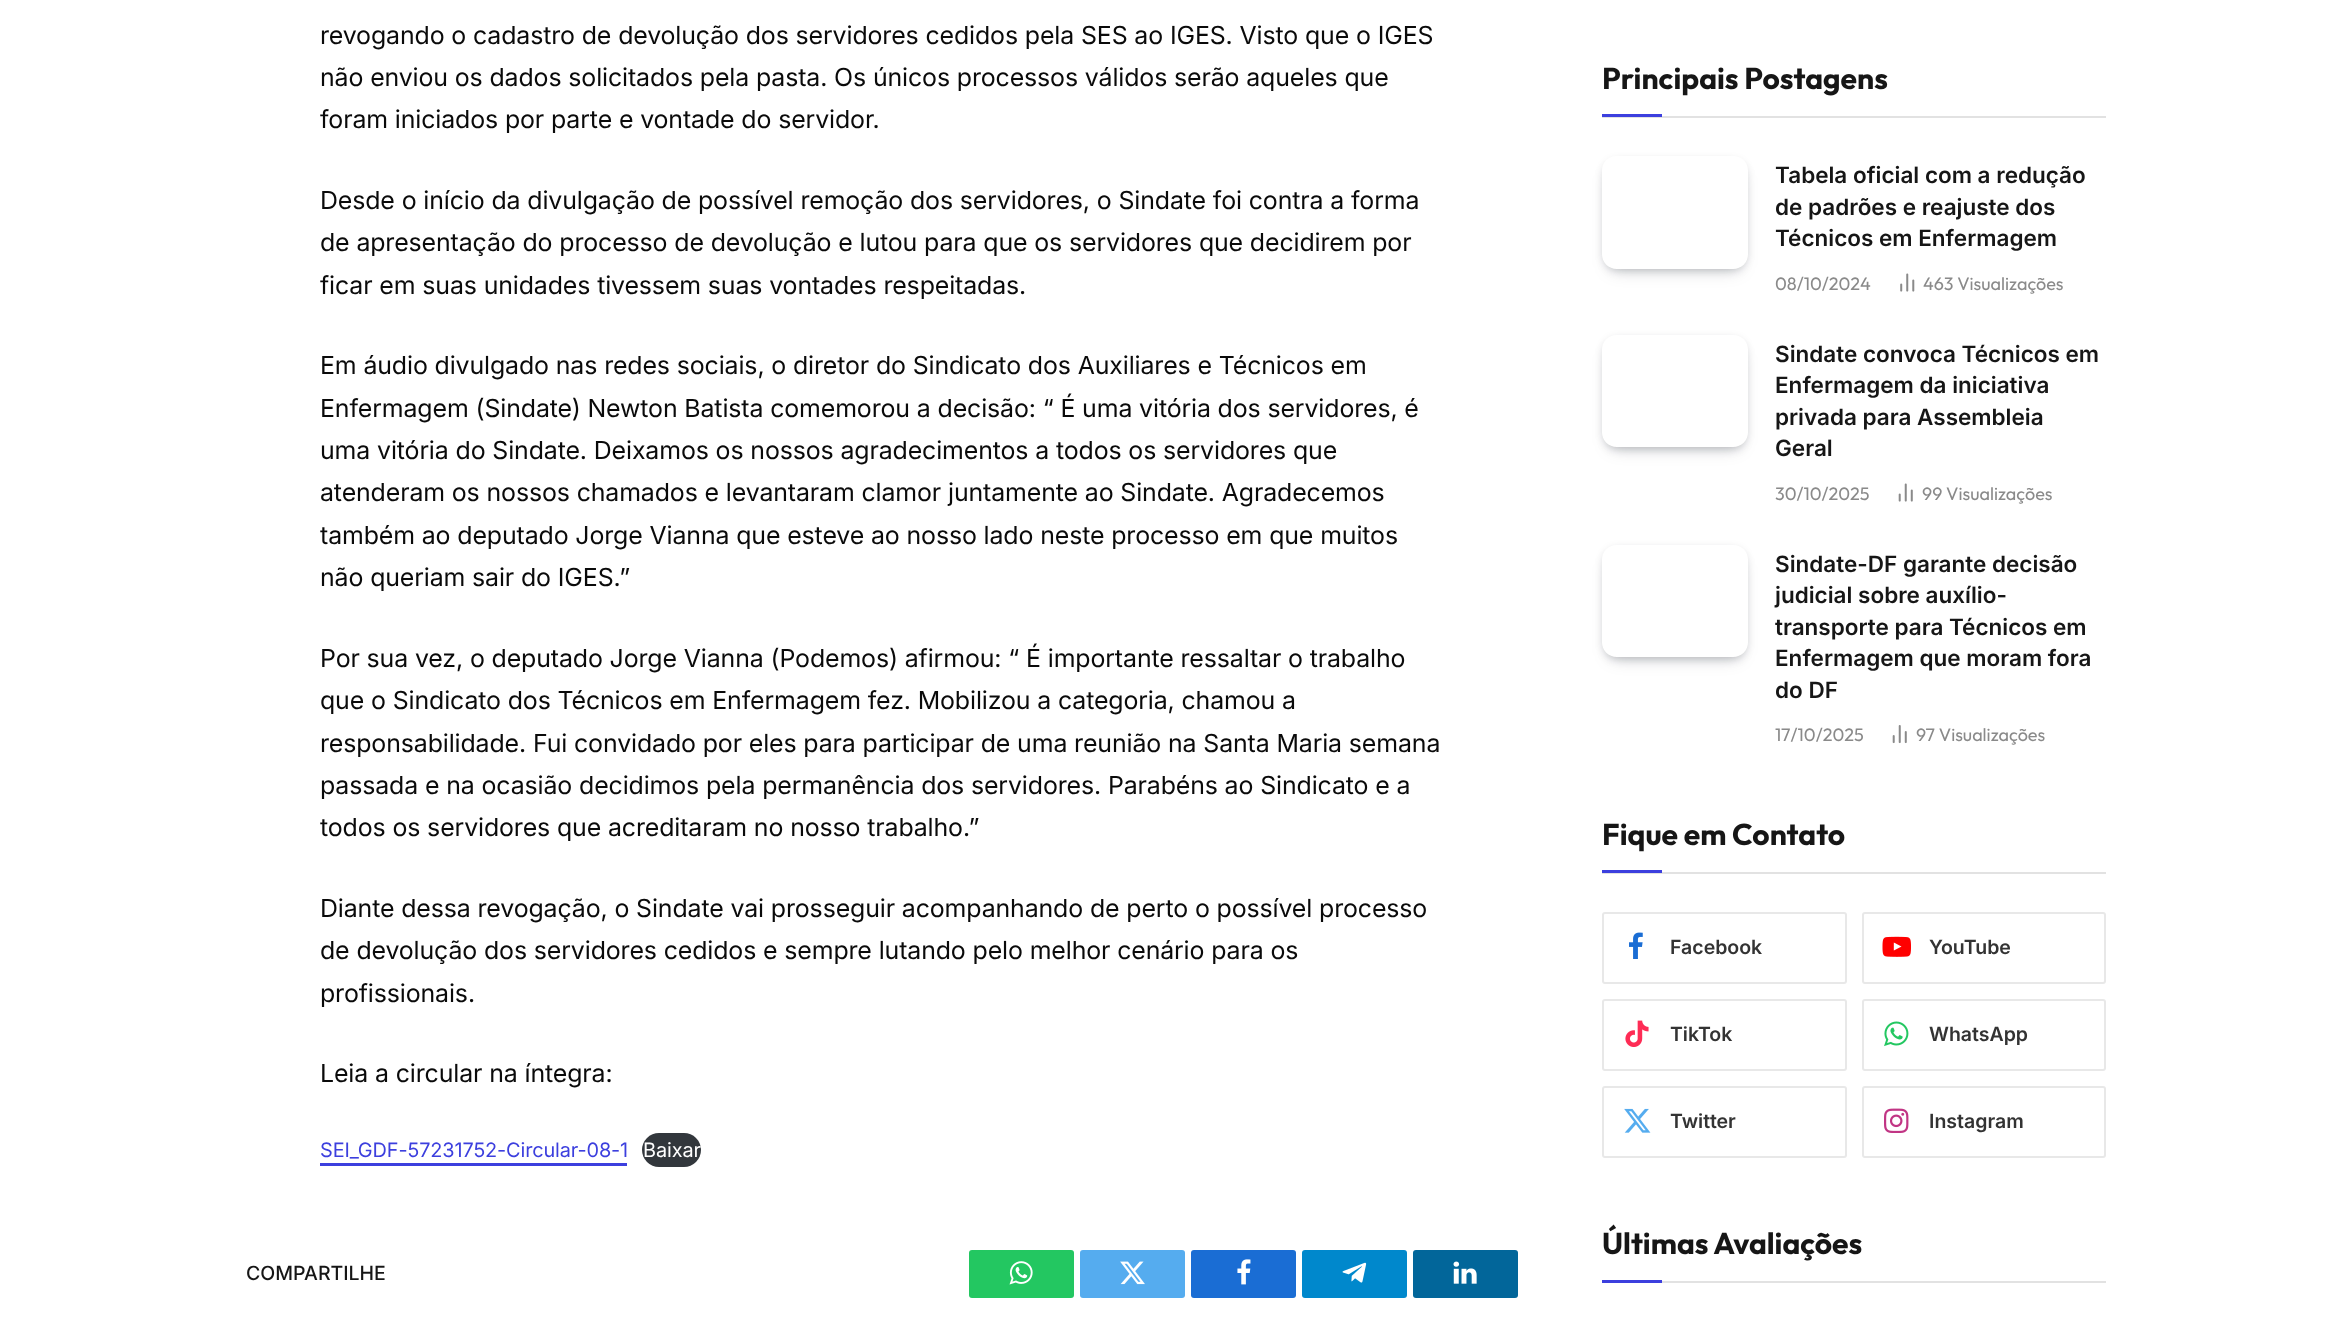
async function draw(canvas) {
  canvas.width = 2352
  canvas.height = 1324
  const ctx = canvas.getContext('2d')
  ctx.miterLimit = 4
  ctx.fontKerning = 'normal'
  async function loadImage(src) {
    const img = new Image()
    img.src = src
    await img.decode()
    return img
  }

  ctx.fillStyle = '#fff'
  ctx.fillRect(0, 0, 2352, 1324)
  ctx.letterSpacing = '-0.12px'
  ctx.font = '24.9px Inter'
  ctx.fillStyle = '#0a0a0a'
  ctx.fillText('revogando o cadastro de devolução dos servidores cedidos pela SES ao IGES. Visto que o IGES', 320, 44)
  ctx.fillText('não enviou os dados solicitados pela pasta. Os únicos processos válidos serão aqueles que', 320, 86)
  ctx.fillText('foram iniciados por parte e vontade do servidor.', 320, 128)
  ctx.fillText('Desde o início da divulgação de possível remoção dos servidores, o Sindate foi contra a forma', 320, 209)
  ctx.fillText('de apresentação do processo de devolução e lutou para que os servidores que decidirem por', 320, 251)
  ctx.fillText('ficar em suas unidades tivessem suas vontades respeitadas.', 320, 294)
  ctx.fillText('Em áudio divulgado nas redes sociais, o diretor do Sindicato dos Auxiliares e Técnicos em', 320, 374)
  ctx.fillText('Enfermagem (Sindate) Newton Batista comemorou a decisão: “ É uma vitória dos servidores, é', 320, 417)
  ctx.fillText('uma vitória do Sindate. Deixamos os nossos agradecimentos a todos os servidores que', 320, 459)
  ctx.fillText('atenderam os nossos chamados e levantaram clamor juntamente ao Sindate. Agradecemos', 320, 501)
  ctx.fillText('também ao deputado Jorge Vianna que esteve ao nosso lado neste processo em que muitos', 320, 544)
  ctx.fillText('não queriam sair do IGES.”', 320, 586)
  ctx.fillText('Por sua vez, o deputado Jorge Vianna (Podemos) afirmou: “ É importante ressaltar o trabalho', 320, 667)
  ctx.fillText('que o Sindicato dos Técnicos em Enfermagem fez. Mobilizou a categoria, chamou a', 320, 709)
  ctx.fillText('responsabilidade. Fui convidado por eles para participar de uma reunião na Santa Maria semana', 320, 752)
  ctx.fillText('passada e na ocasião decidimos pela permanência dos servidores. Parabéns ao Sindicato e a', 320, 794)
  ctx.fillText('todos os servidores que acreditaram no nosso trabalho.”', 320, 836)
  ctx.fillText('Diante dessa revogação, o Sindate vai prosseguir acompanhando de perto o possível processo', 320, 917)
  ctx.fillText('de devolução dos servidores cedidos e sempre lutando pelo melhor cenário para os', 320, 959)
  ctx.fillText('profissionais.', 320, 1002)
  ctx.fillText('Leia a circular na íntegra:', 320, 1082)
  ctx.font = '19.9px Inter'
  ctx.fillStyle = '#3c3fde'
  ctx.fillText('SEI_GDF-57231752-Circular-08-1', 320, 1157)
  ctx.fillRect(320, 1163, 307, 3)
  ctx.fillStyle = '#32373c'
  ctx.beginPath()
  ctx.roundRect(642, 1133, 59, 34, 17)
  ctx.fill()
  ctx.fillStyle = '#fff'
  ctx.fillText('Baixar', 643, 1157)
  ctx.letterSpacing = '0px'
  ctx.font = '500 19.5px Inter'
  ctx.fillStyle = '#161616'
  ctx.fillText('COMPARTILHE', 246, 1280)
  ctx.fillStyle = '#23c761'
  ctx.beginPath()
  ctx.roundRect(969, 1250, 105, 48, 3)
  ctx.fill()
  ctx.drawImage(await loadImage('image0.png'), 1009, 1261, 24, 24)
  ctx.fillStyle = '#55acef'
  ctx.beginPath()
  ctx.roundRect(1080, 1250, 105, 48, 3)
  ctx.fill()
  ctx.drawImage(await loadImage('image1.png'), 1120, 1261, 25, 24)
  ctx.fillStyle = '#1a6dd4'
  ctx.beginPath()
  ctx.roundRect(1191, 1250, 105, 48, 3)
  ctx.fill()
  ctx.drawImage(await loadImage('image2.png'), 1237, 1259, 14, 26)
  ctx.fillStyle = '#08c'
  ctx.beginPath()
  ctx.roundRect(1302, 1250, 105, 48, 3)
  ctx.fill()
  ctx.drawImage(await loadImage('image3.png'), 1342, 1262, 25, 21)
  ctx.fillStyle = '#02669a'
  ctx.beginPath()
  ctx.roundRect(1413, 1250, 105, 48, 3)
  ctx.fill()
  ctx.drawImage(await loadImage('image4.png'), 1453, 1261, 24, 23)
  ctx.fillStyle = '#e2e2e2'
  ctx.fillRect(1602, 116, 504, 2)
  ctx.font = 'bold 30px Outfit'
  ctx.fillStyle = '#161616'
  ctx.fillText('Principais Postagens', 1602, 89)
  ctx.fillStyle = '#3c3fde'
  ctx.fillRect(1602, 114, 60, 3)
  ctx.save()
  ctx.beginPath()
  ctx.moveTo(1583, 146)
  ctx.lineTo(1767, 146)
  ctx.lineTo(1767, 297)
  ctx.lineTo(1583, 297)
  ctx.closePath()
  ctx.moveTo(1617, 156)
  ctx.lineTo(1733, 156)
  ctx.bezierCurveTo(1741.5, 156, 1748, 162.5, 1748, 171)
  ctx.lineTo(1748, 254)
  ctx.bezierCurveTo(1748, 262.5, 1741.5, 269, 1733, 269)
  ctx.lineTo(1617, 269)
  ctx.bezierCurveTo(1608.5, 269, 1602, 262.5, 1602, 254)
  ctx.lineTo(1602, 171)
  ctx.bezierCurveTo(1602, 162.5, 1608.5, 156, 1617, 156)
  ctx.closePath()
  ctx.clip('evenodd')
  ctx.fillStyle = '#070a1933'
  ctx.filter = 'blur(9px)'
  ctx.beginPath()
  ctx.roundRect(1611, 174, 128, 95, 6)
  ctx.fill()
  ctx.filter = 'none'
  ctx.restore()
  ctx.save()
  ctx.beginPath()
  ctx.moveTo(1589, 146)
  ctx.lineTo(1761, 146)
  ctx.lineTo(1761, 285)
  ctx.lineTo(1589, 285)
  ctx.closePath()
  ctx.moveTo(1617, 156)
  ctx.lineTo(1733, 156)
  ctx.bezierCurveTo(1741.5, 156, 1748, 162.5, 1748, 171)
  ctx.lineTo(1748, 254)
  ctx.bezierCurveTo(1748, 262.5, 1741.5, 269, 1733, 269)
  ctx.lineTo(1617, 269)
  ctx.bezierCurveTo(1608.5, 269, 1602, 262.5, 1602, 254)
  ctx.lineTo(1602, 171)
  ctx.bezierCurveTo(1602, 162.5, 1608.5, 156, 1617, 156)
  ctx.closePath()
  ctx.clip('evenodd')
  ctx.fillStyle = '#070a1933'
  ctx.filter = 'blur(4.5px)'
  ctx.beginPath()
  ctx.roundRect(1604, 161, 142, 109, 14)
  ctx.fill()
  ctx.filter = 'none'
  ctx.restore()
  ctx.font = '600 22.5px Inter'
  ctx.fillStyle = '#161616'
  ctx.fillText('Tabela oficial com a redução', 1775, 183)
  ctx.fillText('de padrões e reajuste dos', 1775, 215)
  ctx.fillText('Técnicos em Enfermagem', 1775, 246)
  ctx.font = '18px Outfit'
  ctx.fillStyle = '#8a8a8a'
  ctx.fillText('08/10/2024', 1775, 290)
  ctx.drawImage(await loadImage('image5.png'), 1900, 273, 15, 19)
  ctx.fillText('463 Visualizações', 1923, 290)
  ctx.save()
  ctx.beginPath()
  ctx.moveTo(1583, 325)
  ctx.lineTo(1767, 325)
  ctx.lineTo(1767, 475)
  ctx.lineTo(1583, 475)
  ctx.closePath()
  ctx.moveTo(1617, 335)
  ctx.lineTo(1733, 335)
  ctx.bezierCurveTo(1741.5, 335, 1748, 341.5, 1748, 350)
  ctx.lineTo(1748, 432)
  ctx.bezierCurveTo(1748, 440.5, 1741.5, 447, 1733, 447)
  ctx.lineTo(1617, 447)
  ctx.bezierCurveTo(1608.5, 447, 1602, 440.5, 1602, 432)
  ctx.lineTo(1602, 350)
  ctx.bezierCurveTo(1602, 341.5, 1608.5, 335, 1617, 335)
  ctx.closePath()
  ctx.clip('evenodd')
  ctx.fillStyle = '#070a1933'
  ctx.filter = 'blur(9px)'
  ctx.beginPath()
  ctx.roundRect(1611, 353, 128, 94, 6)
  ctx.fill()
  ctx.filter = 'none'
  ctx.restore()
  ctx.save()
  ctx.beginPath()
  ctx.moveTo(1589, 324)
  ctx.lineTo(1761, 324)
  ctx.lineTo(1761, 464)
  ctx.lineTo(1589, 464)
  ctx.closePath()
  ctx.moveTo(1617, 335)
  ctx.lineTo(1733, 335)
  ctx.bezierCurveTo(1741.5, 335, 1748, 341.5, 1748, 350)
  ctx.lineTo(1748, 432)
  ctx.bezierCurveTo(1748, 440.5, 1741.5, 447, 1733, 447)
  ctx.lineTo(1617, 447)
  ctx.bezierCurveTo(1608.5, 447, 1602, 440.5, 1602, 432)
  ctx.lineTo(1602, 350)
  ctx.bezierCurveTo(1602, 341.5, 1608.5, 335, 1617, 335)
  ctx.closePath()
  ctx.clip('evenodd')
  ctx.fillStyle = '#070a1933'
  ctx.filter = 'blur(4.5px)'
  ctx.beginPath()
  ctx.roundRect(1604, 339, 142, 110, 14)
  ctx.fill()
  ctx.filter = 'none'
  ctx.restore()
  ctx.font = '600 22.5px Inter'
  ctx.fillStyle = '#161616'
  ctx.fillText('Sindate convoca Técnicos em', 1775, 362)
  ctx.fillText('Enfermagem da iniciativa', 1775, 393)
  ctx.fillText('privada para Assembleia', 1775, 425)
  ctx.fillText('Geral', 1775, 456)
  ctx.font = '18px Outfit'
  ctx.fillStyle = '#8a8a8a'
  ctx.fillText('30/10/2025', 1775, 500)
  ctx.drawImage(await loadImage('image6.png'), 1898, 483, 15, 19)
  ctx.fillText('99 Visualizações', 1922, 500)
  ctx.save()
  ctx.beginPath()
  ctx.moveTo(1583, 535)
  ctx.lineTo(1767, 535)
  ctx.lineTo(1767, 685)
  ctx.lineTo(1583, 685)
  ctx.closePath()
  ctx.moveTo(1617, 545)
  ctx.lineTo(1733, 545)
  ctx.bezierCurveTo(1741.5, 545, 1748, 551.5, 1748, 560)
  ctx.lineTo(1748, 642)
  ctx.bezierCurveTo(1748, 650.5, 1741.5, 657, 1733, 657)
  ctx.lineTo(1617, 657)
  ctx.bezierCurveTo(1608.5, 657, 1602, 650.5, 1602, 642)
  ctx.lineTo(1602, 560)
  ctx.bezierCurveTo(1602, 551.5, 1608.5, 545, 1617, 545)
  ctx.closePath()
  ctx.clip('evenodd')
  ctx.fillStyle = '#070a1933'
  ctx.filter = 'blur(9px)'
  ctx.beginPath()
  ctx.roundRect(1611, 563, 128, 94, 6)
  ctx.fill()
  ctx.filter = 'none'
  ctx.restore()
  ctx.save()
  ctx.beginPath()
  ctx.moveTo(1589, 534)
  ctx.lineTo(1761, 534)
  ctx.lineTo(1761, 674)
  ctx.lineTo(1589, 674)
  ctx.closePath()
  ctx.moveTo(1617, 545)
  ctx.lineTo(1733, 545)
  ctx.bezierCurveTo(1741.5, 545, 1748, 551.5, 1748, 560)
  ctx.lineTo(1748, 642)
  ctx.bezierCurveTo(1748, 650.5, 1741.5, 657, 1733, 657)
  ctx.lineTo(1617, 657)
  ctx.bezierCurveTo(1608.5, 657, 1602, 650.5, 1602, 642)
  ctx.lineTo(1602, 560)
  ctx.bezierCurveTo(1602, 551.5, 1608.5, 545, 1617, 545)
  ctx.closePath()
  ctx.clip('evenodd')
  ctx.fillStyle = '#070a1933'
  ctx.filter = 'blur(4.5px)'
  ctx.beginPath()
  ctx.roundRect(1604, 549, 142, 110, 14)
  ctx.fill()
  ctx.filter = 'none'
  ctx.restore()
  ctx.font = '600 22.5px Inter'
  ctx.fillStyle = '#161616'
  ctx.fillText('Sindate-DF garante decisão', 1775, 572)
  ctx.fillText('judicial sobre auxílio-', 1775, 603)
  ctx.fillText('transporte para Técnicos em', 1775, 635)
  ctx.fillText('Enfermagem que moram fora', 1775, 666)
  ctx.fillText('do DF', 1775, 698)
  ctx.font = '18px Outfit'
  ctx.fillStyle = '#8a8a8a'
  ctx.fillText('17/10/2025', 1775, 741)
  ctx.drawImage(await loadImage('image7.png'), 1892, 725, 15, 19)
  ctx.fillText('97 Visualizações', 1916, 741)
  ctx.fillStyle = '#e2e2e2'
  ctx.fillRect(1602, 872, 504, 2)
  ctx.font = 'bold 30px Outfit'
  ctx.fillStyle = '#161616'
  ctx.fillText('Fique em Contato', 1602, 845)
  ctx.fillStyle = '#3c3fde'
  ctx.fillRect(1602, 870, 60, 3)
  ctx.beginPath()
  ctx.roundRect(1603, 913, 243, 70, 2)
  ctx.strokeStyle = '#e8e8e8'
  ctx.lineWidth = 2
  ctx.stroke()
  ctx.drawImage(await loadImage('image8.png'), 1629, 932, 14, 27)
  ctx.font = '600 19.5px Inter'
  ctx.fillStyle = '#333'
  ctx.fillText('Facebook', 1670, 954)
  ctx.beginPath()
  ctx.roundRect(1863, 913, 242, 70, 2)
  ctx.stroke()
  ctx.drawImage(await loadImage('image9.png'), 1882, 936, 29, 21)
  ctx.fillText('YouTube', 1929, 954)
  ctx.beginPath()
  ctx.roundRect(1603, 1000, 243, 70, 2)
  ctx.stroke()
  ctx.drawImage(await loadImage('image10.png'), 1625, 1020, 24, 27)
  ctx.fillText('TikTok', 1670, 1041)
  ctx.beginPath()
  ctx.roundRect(1863, 1000, 242, 70, 2)
  ctx.stroke()
  ctx.drawImage(await loadImage('image11.png'), 1884, 1021, 25, 26)
  ctx.fillText('WhatsApp', 1929, 1041)
  ctx.beginPath()
  ctx.roundRect(1603, 1087, 243, 70, 2)
  ctx.stroke()
  ctx.drawImage(await loadImage('image12.png'), 1624, 1108, 27, 25)
  ctx.fillText('Twitter', 1670, 1128)
  ctx.beginPath()
  ctx.roundRect(1863, 1087, 242, 70, 2)
  ctx.stroke()
  ctx.drawImage(await loadImage('image13.png'), 1884, 1108, 25, 25)
  ctx.fillText('Instagram', 1929, 1128)
  ctx.fillStyle = '#e2e2e2'
  ctx.fillRect(1662, 1281, 444, 2)
  ctx.font = 'bold 30px Outfit'
  ctx.fillStyle = '#161616'
  ctx.fillText('Últimas Avaliações', 1602, 1254)
  ctx.fillStyle = '#3c3fde'
  ctx.fillRect(1602, 1280, 60, 3)
}

draw(document.querySelector('canvas'))
